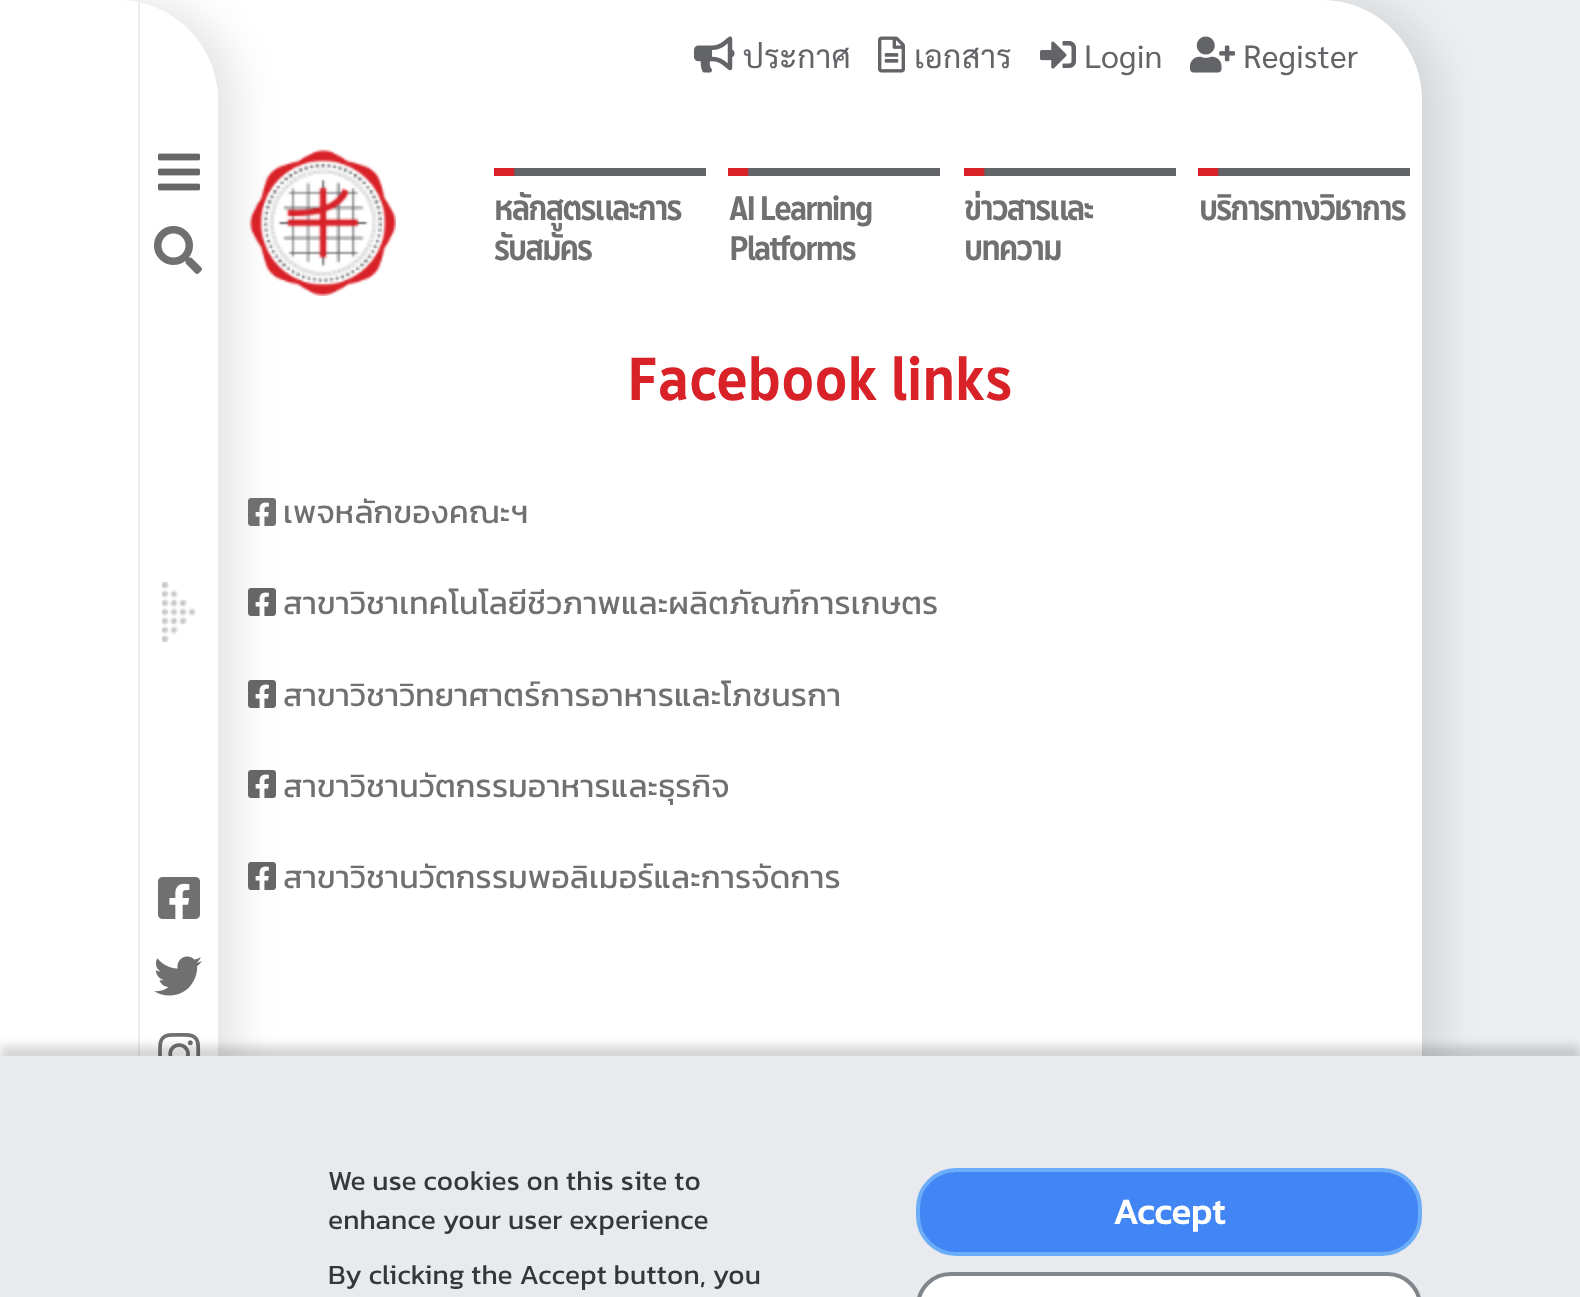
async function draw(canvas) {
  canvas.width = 1580
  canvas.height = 1297
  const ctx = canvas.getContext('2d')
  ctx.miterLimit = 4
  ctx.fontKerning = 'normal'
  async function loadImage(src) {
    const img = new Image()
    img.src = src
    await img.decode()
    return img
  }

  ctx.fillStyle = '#eceff1'
  ctx.fillRect(0, 0, 1580, 1297)
  ctx.fillStyle = '#0000001a'
  ctx.filter = 'blur(20px)'
  ctx.beginPath()
  ctx.roundRect(20, 0, 1422, 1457, 100)
  ctx.fill()
  ctx.filter = 'none'
  ctx.fillStyle = '#fff'
  ctx.beginPath()
  ctx.moveTo(0, 0)
  ctx.lineTo(1322, 0)
  ctx.bezierCurveTo(1377, 0, 1422, 45, 1422, 100)
  ctx.lineTo(1422, 1297)
  ctx.bezierCurveTo(1422, 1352, 1377, 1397, 1322, 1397)
  ctx.lineTo(0, 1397)
  ctx.closePath()
  ctx.fill()
  ctx.fillStyle = '#0000001a'
  ctx.filter = 'blur(20px)'
  ctx.beginPath()
  ctx.roundRect(-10, 0, 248, 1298, 100)
  ctx.fill()
  ctx.filter = 'none'
  ctx.fillStyle = '#fff'
  ctx.beginPath()
  ctx.moveTo(0, 0)
  ctx.lineTo(118, 0)
  ctx.bezierCurveTo(173, 0, 218, 45, 218, 100)
  ctx.lineTo(218, 1198)
  ctx.bezierCurveTo(218, 1253, 173, 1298, 118, 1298)
  ctx.lineTo(0, 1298)
  ctx.closePath()
  ctx.fill()
  ctx.fillStyle = '#eee'
  ctx.fillRect(138, 0, 2, 1056)
  ctx.drawImage(await loadImage('image0.png'), 158, 153, 42, 38)
  ctx.drawImage(await loadImage('image1.png'), 154, 226, 48, 48)
  ctx.drawImage(await loadImage('image2.png'), 162, 582, 34, 60)
  ctx.drawImage(await loadImage('image3.png'), 158, 877, 42, 42)
  ctx.drawImage(await loadImage('image4.png'), 154, 956, 48, 40)
  ctx.drawImage(await loadImage('image5.png'), 158, 1033, 43, 23)
  ctx.drawImage(await loadImage('image6.png'), 694, 36, 41, 37)
  ctx.letterSpacing = '0.2px'
  ctx.font = '32px Sarabun'
  ctx.fillStyle = '#626467'
  ctx.fillText('ประกาศ', 743, 68)
  ctx.drawImage(await loadImage('image7.png'), 878, 36, 27, 37)
  ctx.fillText('เอกสาร', 914, 68)
  ctx.drawImage(await loadImage('image8.png'), 1040, 41, 36, 28)
  ctx.fillText('Login', 1084, 68)
  ctx.drawImage(await loadImage('image9.png'), 1190, 36, 45, 37)
  ctx.fillText('Register', 1243, 68)
  ctx.drawImage(await loadImage('image10.png'), 249, 149, 147, 147)
  ctx.drawImage(await loadImage('image11.png'), 494, 168, 212, 8)
  ctx.letterSpacing = '-2px'
  ctx.font = '36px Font'
  ctx.fillStyle = '#707070'
  ctx.fillText('หลักสูตรและการ', 494, 220)
  ctx.save()
  ctx.beginPath()
  ctx.rect(494, 168, 212, 100)
  ctx.clip()
  ctx.fillText('รับสมัคร', 494, 260)
  ctx.restore()
  ctx.drawImage(await loadImage('image11.png'), 728, 168, 212, 8)
  ctx.fillText('AI Learning', 729, 220)
  ctx.fillText('Platforms', 729, 260)
  ctx.drawImage(await loadImage('image11.png'), 964, 168, 212, 8)
  ctx.save()
  ctx.beginPath()
  ctx.rect(964, 168, 212, 100)
  ctx.clip()
  ctx.fillText('ข่าวสารและ', 964, 220)
  ctx.restore()
  ctx.fillText('บทความ', 964, 260)
  ctx.drawImage(await loadImage('image11.png'), 1198, 168, 212, 8)
  ctx.fillText('บริการทางวิชาการ', 1199, 220)
  ctx.letterSpacing = '0.2px'
  ctx.font = '64px Font'
  ctx.fillStyle = '#d92128'
  ctx.fillText('Facebook links', 627, 400)
  ctx.drawImage(await loadImage('image12.png'), 248, 498, 28, 28)
  ctx.font = '32px Kanit'
  ctx.fillStyle = '#707070'
  ctx.fillText('เพจหลักของคณะฯ', 283, 523)
  ctx.drawImage(await loadImage('image13.png'), 248, 588, 28, 28)
  ctx.fillText('สาขาวิชาเทคโนโลยีชีวภาพและผลิตภัณฑ์การเกษตร', 283, 614)
  ctx.drawImage(await loadImage('image13.png'), 248, 680, 28, 28)
  ctx.fillText('สาขาวิชาวิทยาศาตร์การอาหารและโภชนรกา', 283, 706)
  ctx.drawImage(await loadImage('image13.png'), 248, 770, 28, 28)
  ctx.fillText('สาขาวิชานวัตกรรมอาหารและธุรกิจ', 283, 797)
  ctx.drawImage(await loadImage('image13.png'), 248, 862, 28, 28)
  ctx.fillText('สาขาวิชานวัตกรรมพอลิเมอร์และการจัดการ', 283, 888)
  ctx.fillStyle = '#00000029'
  ctx.filter = 'blur(5px)'
  ctx.beginPath()
  ctx.rect(0, 1046, 1580, 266)
  ctx.fill()
  ctx.filter = 'none'
  ctx.fillStyle = '#e8eaed'
  ctx.fillRect(0, 1056, 1580, 241)
  ctx.font = '28px Kanit'
  ctx.fillStyle = '#35383b'
  ctx.fillText('We use cookies on this site to', 328, 1190)
  ctx.fillText('enhance your user experience', 328, 1229)
  ctx.fillText('By clicking the Accept button, you', 328, 1284)
  ctx.fillStyle = '#4285f4'
  ctx.beginPath()
  ctx.roundRect(918, 1170, 502, 84, 38)
  ctx.fill()
  ctx.strokeStyle = '#6badf9'
  ctx.lineWidth = 4
  ctx.stroke()
  ctx.font = 'bold 36px Kanit'
  ctx.fillStyle = '#fff'
  ctx.fillText('Accept', 1113, 1224)
  ctx.beginPath()
  ctx.roundRect(918, 1274, 502, 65, 38)
  ctx.fill()
  ctx.strokeStyle = '#80868b'
  ctx.stroke()
}

draw(document.querySelector('canvas'))
